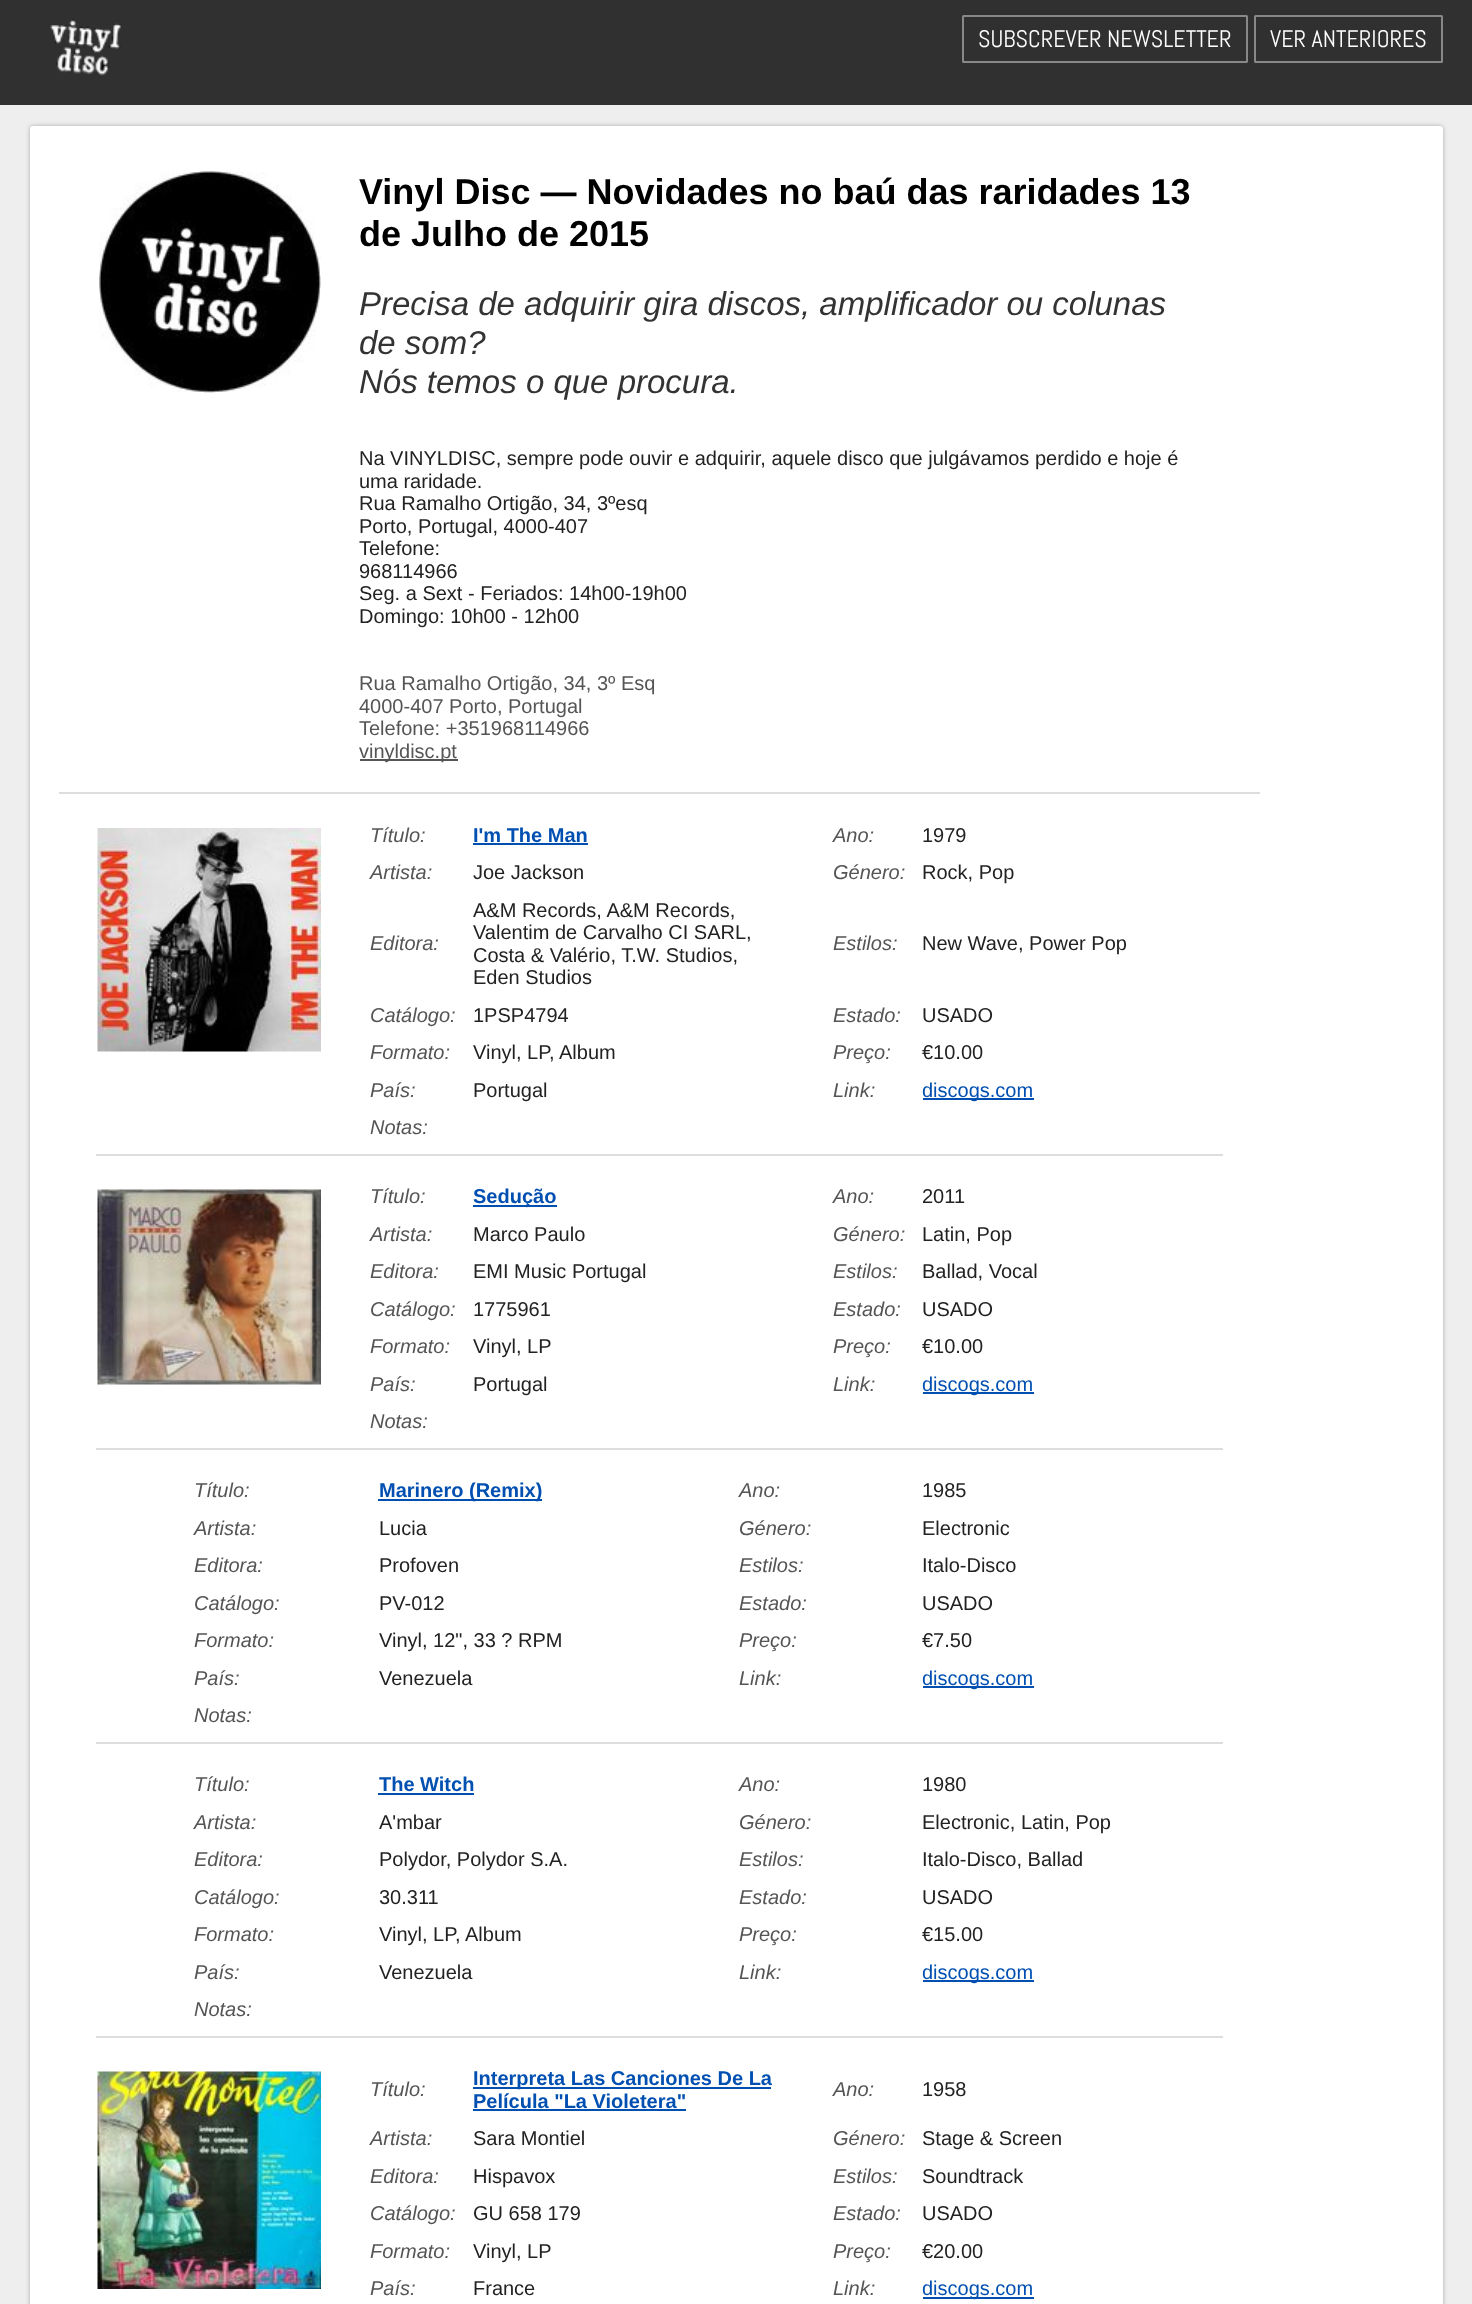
async function draw(canvas) {
  canvas.width = 1472
  canvas.height = 2304
  const ctx = canvas.getContext('2d')
  ctx.miterLimit = 4
  ctx.fontKerning = 'normal'
  async function loadImage(src) {
    const img = new Image()
    img.src = src
    await img.decode()
    return img
  }

  ctx.fillStyle = '#eee'
  ctx.fillRect(0, 0, 1472, 2304)
  ctx.fillStyle = '#303030'
  ctx.fillRect(0, 0, 1472, 105)
  ctx.drawImage(await loadImage('image0.png'), 50, 19, 72, 57)
  ctx.beginPath()
  ctx.roundRect(963, 16, 284, 46, 0.5)
  ctx.strokeStyle = '#888'
  ctx.lineWidth = 2
  ctx.stroke()
  ctx.font = '24px Abel'
  ctx.fillStyle = '#fff'
  ctx.fillText('SUBSCREVER NEWSLETTER', 978, 47)
  ctx.beginPath()
  ctx.roundRect(1255, 16, 187, 46, 0.5)
  ctx.stroke()
  ctx.fillText('VER ANTERIORES', 1270, 47)
  ctx.fillStyle = '#aaa'
  ctx.filter = 'blur(2px)'
  ctx.beginPath()
  ctx.roundRect(30, 126, 1413, 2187, 3)
  ctx.fill()
  ctx.filter = 'none'
  ctx.fillStyle = '#fff'
  ctx.beginPath()
  ctx.roundRect(30, 126, 1413, 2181, 3)
  ctx.fill()
  ctx.drawImage(await loadImage('image1.png'), 99, 171, 222, 222)
  ctx.font = 'bold 36px Liberation Sans'
  ctx.fillStyle = '#000'
  ctx.fillText('Vinyl Disc — Novidades no baú das raridades 13', 359, 204)
  ctx.fillText('de Julho de 2015', 359, 246)
  ctx.font = 'italic 33px Liberation Sans'
  ctx.fillStyle = '#333'
  ctx.fillText('Precisa de adquirir gira discos, amplificador ou colunas', 359, 315)
  ctx.fillText('de som?', 359, 354)
  ctx.fillText('Nós temos o que procura.', 359, 393)
  ctx.font = '20px Liberation Sans'
  ctx.fillStyle = '#222'
  ctx.fillText('Na VINYLDISC, sempre pode ouvir e adquirir, aquele disco que julgávamos perdido e hoje é', 359, 465)
  ctx.fillText('uma raridade.', 359, 488)
  ctx.fillText('Rua Ramalho Ortigão, 34, 3ºesq', 359, 510)
  ctx.fillText('Porto, Portugal, 4000-407', 359, 533)
  ctx.fillText('Telefone:', 359, 555)
  ctx.fillText('968114966', 359, 578)
  ctx.fillText('Seg. a Sext - Feriados: 14h00-19h00', 359, 600)
  ctx.fillText('Domingo: 10h00 - 12h00', 359, 623)
  ctx.fillStyle = '#555'
  ctx.fillText('Rua Ramalho Ortigão, 34, 3º Esq', 359, 690)
  ctx.fillText('4000-407 Porto, Portugal', 359, 713)
  ctx.fillText('Telefone: +351968114966', 359, 735)
  ctx.fillRect(360, 759, 98, 2)
  ctx.fillText('vinyldisc.pt', 359, 758)
  ctx.fillStyle = '#ddd'
  ctx.fillRect(59, 792, 1201, 2)
  ctx.drawImage(await loadImage('image2.png'), 97, 828, 224, 224)
  ctx.font = 'italic 20px Liberation Sans'
  ctx.fillStyle = '#555'
  ctx.fillText('Título:', 370, 842)
  ctx.font = 'bold 20px Liberation Sans'
  ctx.fillStyle = '#004fb1'
  ctx.fillText('I\'m The Man', 473, 842)
  ctx.fillRect(473, 843, 115, 2)
  ctx.font = 'italic 20px Liberation Sans'
  ctx.fillStyle = '#555'
  ctx.fillText('Ano:', 833, 842)
  ctx.font = '20px Liberation Sans'
  ctx.fillStyle = '#222'
  ctx.fillText('1979', 922, 842)
  ctx.font = 'italic 20px Liberation Sans'
  ctx.fillStyle = '#555'
  ctx.fillText('Artista:', 370, 879)
  ctx.font = '20px Liberation Sans'
  ctx.fillStyle = '#222'
  ctx.fillText('Joe Jackson', 473, 879)
  ctx.font = 'italic 20px Liberation Sans'
  ctx.fillStyle = '#555'
  ctx.fillText('Género:', 833, 879)
  ctx.font = '20px Liberation Sans'
  ctx.fillStyle = '#222'
  ctx.fillText('Rock, Pop', 922, 879)
  ctx.font = 'italic 20px Liberation Sans'
  ctx.fillStyle = '#555'
  ctx.fillText('Editora:', 370, 950)
  ctx.font = '20px Liberation Sans'
  ctx.fillStyle = '#222'
  ctx.fillText('A&M Records, A&M Records,', 473, 917)
  ctx.fillText('Valentim de Carvalho CI SARL,', 473, 939)
  ctx.fillText('Costa & Valério, T.W. Studios,', 473, 962)
  ctx.fillText('Eden Studios', 473, 984)
  ctx.font = 'italic 20px Liberation Sans'
  ctx.fillStyle = '#555'
  ctx.fillText('Estilos:', 833, 950)
  ctx.font = '20px Liberation Sans'
  ctx.fillStyle = '#222'
  ctx.fillText('New Wave, Power Pop', 922, 950)
  ctx.font = 'italic 20px Liberation Sans'
  ctx.fillStyle = '#555'
  ctx.fillText('Catálogo:', 370, 1022)
  ctx.font = '20px Liberation Sans'
  ctx.fillStyle = '#222'
  ctx.fillText('1PSP4794', 473, 1022)
  ctx.font = 'italic 20px Liberation Sans'
  ctx.fillStyle = '#555'
  ctx.fillText('Estado:', 833, 1022)
  ctx.font = '20px Liberation Sans'
  ctx.fillStyle = '#222'
  ctx.fillText('USADO', 922, 1022)
  ctx.font = 'italic 20px Liberation Sans'
  ctx.fillStyle = '#555'
  ctx.fillText('Formato:', 370, 1059)
  ctx.font = '20px Liberation Sans'
  ctx.fillStyle = '#222'
  ctx.fillText('Vinyl, LP, Album', 473, 1059)
  ctx.font = 'italic 20px Liberation Sans'
  ctx.fillStyle = '#555'
  ctx.fillText('Preço:', 833, 1059)
  ctx.font = '20px Liberation Sans'
  ctx.fillStyle = '#222'
  ctx.fillText('€10.00', 922, 1059)
  ctx.font = 'italic 20px Liberation Sans'
  ctx.fillStyle = '#555'
  ctx.fillText('País:', 370, 1097)
  ctx.font = '20px Liberation Sans'
  ctx.fillStyle = '#222'
  ctx.fillText('Portugal', 473, 1097)
  ctx.font = 'italic 20px Liberation Sans'
  ctx.fillStyle = '#555'
  ctx.fillText('Link:', 833, 1097)
  ctx.fillStyle = '#004fb1'
  ctx.fillRect(923, 1098, 111, 2)
  ctx.font = '20px Liberation Sans'
  ctx.fillText('discogs.com', 922, 1097)
  ctx.font = 'italic 20px Liberation Sans'
  ctx.fillStyle = '#555'
  ctx.fillText('Notas:', 370, 1134)
  ctx.fillStyle = '#ddd'
  ctx.fillRect(96, 1154, 1127, 2)
  ctx.drawImage(await loadImage('image3.png'), 97, 1189, 224, 196)
  ctx.fillStyle = '#555'
  ctx.fillText('Título:', 370, 1203)
  ctx.fillStyle = '#004fb1'
  ctx.fillRect(473, 1205, 84, 2)
  ctx.font = 'bold 20px Liberation Sans'
  ctx.fillText('Sedução', 473, 1203)
  ctx.font = 'italic 20px Liberation Sans'
  ctx.fillStyle = '#555'
  ctx.fillText('Ano:', 833, 1203)
  ctx.font = '20px Liberation Sans'
  ctx.fillStyle = '#222'
  ctx.fillText('2011', 922, 1203)
  ctx.font = 'italic 20px Liberation Sans'
  ctx.fillStyle = '#555'
  ctx.fillText('Artista:', 370, 1241)
  ctx.font = '20px Liberation Sans'
  ctx.fillStyle = '#222'
  ctx.fillText('Marco Paulo', 473, 1241)
  ctx.font = 'italic 20px Liberation Sans'
  ctx.fillStyle = '#555'
  ctx.fillText('Género:', 833, 1241)
  ctx.font = '20px Liberation Sans'
  ctx.fillStyle = '#222'
  ctx.fillText('Latin, Pop', 922, 1241)
  ctx.font = 'italic 20px Liberation Sans'
  ctx.fillStyle = '#555'
  ctx.fillText('Editora:', 370, 1278)
  ctx.font = '20px Liberation Sans'
  ctx.fillStyle = '#222'
  ctx.fillText('EMI Music Portugal', 473, 1278)
  ctx.font = 'italic 20px Liberation Sans'
  ctx.fillStyle = '#555'
  ctx.fillText('Estilos:', 833, 1278)
  ctx.font = '20px Liberation Sans'
  ctx.fillStyle = '#222'
  ctx.fillText('Ballad, Vocal', 922, 1278)
  ctx.font = 'italic 20px Liberation Sans'
  ctx.fillStyle = '#555'
  ctx.fillText('Catálogo:', 370, 1316)
  ctx.font = '20px Liberation Sans'
  ctx.fillStyle = '#222'
  ctx.fillText('1775961', 473, 1316)
  ctx.font = 'italic 20px Liberation Sans'
  ctx.fillStyle = '#555'
  ctx.fillText('Estado:', 833, 1316)
  ctx.font = '20px Liberation Sans'
  ctx.fillStyle = '#222'
  ctx.fillText('USADO', 922, 1316)
  ctx.font = 'italic 20px Liberation Sans'
  ctx.fillStyle = '#555'
  ctx.fillText('Formato:', 370, 1353)
  ctx.font = '20px Liberation Sans'
  ctx.fillStyle = '#222'
  ctx.fillText('Vinyl, LP', 473, 1353)
  ctx.font = 'italic 20px Liberation Sans'
  ctx.fillStyle = '#555'
  ctx.fillText('Preço:', 833, 1353)
  ctx.font = '20px Liberation Sans'
  ctx.fillStyle = '#222'
  ctx.fillText('€10.00', 922, 1353)
  ctx.font = 'italic 20px Liberation Sans'
  ctx.fillStyle = '#555'
  ctx.fillText('País:', 370, 1391)
  ctx.font = '20px Liberation Sans'
  ctx.fillStyle = '#222'
  ctx.fillText('Portugal', 473, 1391)
  ctx.font = 'italic 20px Liberation Sans'
  ctx.fillStyle = '#555'
  ctx.fillText('Link:', 833, 1391)
  ctx.fillStyle = '#004fb1'
  ctx.fillRect(923, 1392, 111, 2)
  ctx.font = '20px Liberation Sans'
  ctx.fillText('discogs.com', 922, 1391)
  ctx.font = 'italic 20px Liberation Sans'
  ctx.fillStyle = '#555'
  ctx.fillText('Notas:', 370, 1428)
  ctx.fillStyle = '#ddd'
  ctx.fillRect(96, 1448, 1127, 2)
  ctx.fillStyle = '#555'
  ctx.fillText('Título:', 194, 1497)
  ctx.fillStyle = '#004fb1'
  ctx.fillRect(378, 1499, 164, 2)
  ctx.font = 'bold 20px Liberation Sans'
  ctx.fillText('Marinero (Remix)', 379, 1497)
  ctx.font = 'italic 20px Liberation Sans'
  ctx.fillStyle = '#555'
  ctx.fillText('Ano:', 739, 1497)
  ctx.font = '20px Liberation Sans'
  ctx.fillStyle = '#222'
  ctx.fillText('1985', 922, 1497)
  ctx.font = 'italic 20px Liberation Sans'
  ctx.fillStyle = '#555'
  ctx.fillText('Artista:', 194, 1535)
  ctx.font = '20px Liberation Sans'
  ctx.fillStyle = '#222'
  ctx.fillText('Lucia', 379, 1535)
  ctx.font = 'italic 20px Liberation Sans'
  ctx.fillStyle = '#555'
  ctx.fillText('Género:', 739, 1535)
  ctx.font = '20px Liberation Sans'
  ctx.fillStyle = '#222'
  ctx.fillText('Electronic', 922, 1535)
  ctx.font = 'italic 20px Liberation Sans'
  ctx.fillStyle = '#555'
  ctx.fillText('Editora:', 194, 1572)
  ctx.font = '20px Liberation Sans'
  ctx.fillStyle = '#222'
  ctx.fillText('Profoven', 379, 1572)
  ctx.font = 'italic 20px Liberation Sans'
  ctx.fillStyle = '#555'
  ctx.fillText('Estilos:', 739, 1572)
  ctx.font = '20px Liberation Sans'
  ctx.fillStyle = '#222'
  ctx.fillText('Italo-Disco', 922, 1572)
  ctx.font = 'italic 20px Liberation Sans'
  ctx.fillStyle = '#555'
  ctx.fillText('Catálogo:', 194, 1610)
  ctx.font = '20px Liberation Sans'
  ctx.fillStyle = '#222'
  ctx.fillText('PV-012', 379, 1610)
  ctx.font = 'italic 20px Liberation Sans'
  ctx.fillStyle = '#555'
  ctx.fillText('Estado:', 739, 1610)
  ctx.font = '20px Liberation Sans'
  ctx.fillStyle = '#222'
  ctx.fillText('USADO', 922, 1610)
  ctx.font = 'italic 20px Liberation Sans'
  ctx.fillStyle = '#555'
  ctx.fillText('Formato:', 194, 1647)
  ctx.font = '20px Liberation Sans'
  ctx.fillStyle = '#222'
  ctx.fillText('Vinyl, 12", 33 ? RPM', 379, 1647)
  ctx.font = 'italic 20px Liberation Sans'
  ctx.fillStyle = '#555'
  ctx.fillText('Preço:', 739, 1647)
  ctx.font = '20px Liberation Sans'
  ctx.fillStyle = '#222'
  ctx.fillText('€7.50', 922, 1647)
  ctx.font = 'italic 20px Liberation Sans'
  ctx.fillStyle = '#555'
  ctx.fillText('País:', 194, 1685)
  ctx.font = '20px Liberation Sans'
  ctx.fillStyle = '#222'
  ctx.fillText('Venezuela', 379, 1685)
  ctx.font = 'italic 20px Liberation Sans'
  ctx.fillStyle = '#555'
  ctx.fillText('Link:', 739, 1685)
  ctx.fillStyle = '#004fb1'
  ctx.fillRect(923, 1686, 111, 2)
  ctx.font = '20px Liberation Sans'
  ctx.fillText('discogs.com', 922, 1685)
  ctx.font = 'italic 20px Liberation Sans'
  ctx.fillStyle = '#555'
  ctx.fillText('Notas:', 194, 1722)
  ctx.fillStyle = '#ddd'
  ctx.fillRect(96, 1742, 1127, 2)
  ctx.fillStyle = '#555'
  ctx.fillText('Título:', 194, 1791)
  ctx.font = 'bold 20px Liberation Sans'
  ctx.fillStyle = '#004fb1'
  ctx.fillText('The Witch', 379, 1791)
  ctx.fillRect(378, 1793, 96, 2)
  ctx.font = 'italic 20px Liberation Sans'
  ctx.fillStyle = '#555'
  ctx.fillText('Ano:', 739, 1791)
  ctx.font = '20px Liberation Sans'
  ctx.fillStyle = '#222'
  ctx.fillText('1980', 922, 1791)
  ctx.font = 'italic 20px Liberation Sans'
  ctx.fillStyle = '#555'
  ctx.fillText('Artista:', 194, 1829)
  ctx.font = '20px Liberation Sans'
  ctx.fillStyle = '#222'
  ctx.fillText('A\'mbar', 379, 1829)
  ctx.font = 'italic 20px Liberation Sans'
  ctx.fillStyle = '#555'
  ctx.fillText('Género:', 739, 1829)
  ctx.font = '20px Liberation Sans'
  ctx.fillStyle = '#222'
  ctx.fillText('Electronic, Latin, Pop', 922, 1829)
  ctx.font = 'italic 20px Liberation Sans'
  ctx.fillStyle = '#555'
  ctx.fillText('Editora:', 194, 1866)
  ctx.font = '20px Liberation Sans'
  ctx.fillStyle = '#222'
  ctx.fillText('Polydor, Polydor S.A.', 379, 1866)
  ctx.font = 'italic 20px Liberation Sans'
  ctx.fillStyle = '#555'
  ctx.fillText('Estilos:', 739, 1866)
  ctx.font = '20px Liberation Sans'
  ctx.fillStyle = '#222'
  ctx.fillText('Italo-Disco, Ballad', 922, 1866)
  ctx.font = 'italic 20px Liberation Sans'
  ctx.fillStyle = '#555'
  ctx.fillText('Catálogo:', 194, 1904)
  ctx.font = '20px Liberation Sans'
  ctx.fillStyle = '#222'
  ctx.fillText('30.311', 379, 1904)
  ctx.font = 'italic 20px Liberation Sans'
  ctx.fillStyle = '#555'
  ctx.fillText('Estado:', 739, 1904)
  ctx.font = '20px Liberation Sans'
  ctx.fillStyle = '#222'
  ctx.fillText('USADO', 922, 1904)
  ctx.font = 'italic 20px Liberation Sans'
  ctx.fillStyle = '#555'
  ctx.fillText('Formato:', 194, 1941)
  ctx.font = '20px Liberation Sans'
  ctx.fillStyle = '#222'
  ctx.fillText('Vinyl, LP, Album', 379, 1941)
  ctx.font = 'italic 20px Liberation Sans'
  ctx.fillStyle = '#555'
  ctx.fillText('Preço:', 739, 1941)
  ctx.font = '20px Liberation Sans'
  ctx.fillStyle = '#222'
  ctx.fillText('€15.00', 922, 1941)
  ctx.font = 'italic 20px Liberation Sans'
  ctx.fillStyle = '#555'
  ctx.fillText('País:', 194, 1979)
  ctx.font = '20px Liberation Sans'
  ctx.fillStyle = '#222'
  ctx.fillText('Venezuela', 379, 1979)
  ctx.font = 'italic 20px Liberation Sans'
  ctx.fillStyle = '#555'
  ctx.fillText('Link:', 739, 1979)
  ctx.fillStyle = '#004fb1'
  ctx.fillRect(923, 1980, 111, 2)
  ctx.font = '20px Liberation Sans'
  ctx.fillText('discogs.com', 922, 1979)
  ctx.font = 'italic 20px Liberation Sans'
  ctx.fillStyle = '#555'
  ctx.fillText('Notas:', 194, 2016)
  ctx.fillStyle = '#ddd'
  ctx.fillRect(96, 2036, 1127, 2)
  ctx.drawImage(await loadImage('image4.png'), 97, 2071, 224, 218)
  ctx.fillStyle = '#555'
  ctx.fillText('Título:', 370, 2096)
  ctx.fillStyle = '#004fb1'
  ctx.fillRect(473, 2087, 298, 2)
  ctx.font = 'bold 20px Liberation Sans'
  ctx.fillText('Interpreta Las Canciones De La', 473, 2085)
  ctx.fillText('Película "La Violetera"', 473, 2108)
  ctx.fillRect(473, 2109, 213, 2)
  ctx.font = 'italic 20px Liberation Sans'
  ctx.fillStyle = '#555'
  ctx.fillText('Ano:', 833, 2096)
  ctx.font = '20px Liberation Sans'
  ctx.fillStyle = '#222'
  ctx.fillText('1958', 922, 2096)
  ctx.font = 'italic 20px Liberation Sans'
  ctx.fillStyle = '#555'
  ctx.fillText('Artista:', 370, 2145)
  ctx.font = '20px Liberation Sans'
  ctx.fillStyle = '#222'
  ctx.fillText('Sara Montiel', 473, 2145)
  ctx.font = 'italic 20px Liberation Sans'
  ctx.fillStyle = '#555'
  ctx.fillText('Género:', 833, 2145)
  ctx.font = '20px Liberation Sans'
  ctx.fillStyle = '#222'
  ctx.fillText('Stage & Screen', 922, 2145)
  ctx.font = 'italic 20px Liberation Sans'
  ctx.fillStyle = '#555'
  ctx.fillText('Editora:', 370, 2183)
  ctx.font = '20px Liberation Sans'
  ctx.fillStyle = '#222'
  ctx.fillText('Hispavox', 473, 2183)
  ctx.font = 'italic 20px Liberation Sans'
  ctx.fillStyle = '#555'
  ctx.fillText('Estilos:', 833, 2183)
  ctx.font = '20px Liberation Sans'
  ctx.fillStyle = '#222'
  ctx.fillText('Soundtrack', 922, 2183)
  ctx.font = 'italic 20px Liberation Sans'
  ctx.fillStyle = '#555'
  ctx.fillText('Catálogo:', 370, 2220)
  ctx.font = '20px Liberation Sans'
  ctx.fillStyle = '#222'
  ctx.fillText('GU 658 179', 473, 2220)
  ctx.font = 'italic 20px Liberation Sans'
  ctx.fillStyle = '#555'
  ctx.fillText('Estado:', 833, 2220)
  ctx.font = '20px Liberation Sans'
  ctx.fillStyle = '#222'
  ctx.fillText('USADO', 922, 2220)
  ctx.font = 'italic 20px Liberation Sans'
  ctx.fillStyle = '#555'
  ctx.fillText('Formato:', 370, 2258)
  ctx.font = '20px Liberation Sans'
  ctx.fillStyle = '#222'
  ctx.fillText('Vinyl, LP', 473, 2258)
  ctx.font = 'italic 20px Liberation Sans'
  ctx.fillStyle = '#555'
  ctx.fillText('Preço:', 833, 2258)
  ctx.font = '20px Liberation Sans'
  ctx.fillStyle = '#222'
  ctx.fillText('€20.00', 922, 2258)
  ctx.font = 'italic 20px Liberation Sans'
  ctx.fillStyle = '#555'
  ctx.fillText('País:', 370, 2295)
  ctx.font = '20px Liberation Sans'
  ctx.fillStyle = '#222'
  ctx.fillText('France', 473, 2295)
  ctx.font = 'italic 20px Liberation Sans'
  ctx.fillStyle = '#555'
  ctx.fillText('Link:', 833, 2295)
  ctx.fillStyle = '#004fb1'
  ctx.fillRect(923, 2297, 111, 2)
  ctx.font = '20px Liberation Sans'
  ctx.fillText('discogs.com', 922, 2295)
}

draw(document.querySelector('canvas'))
